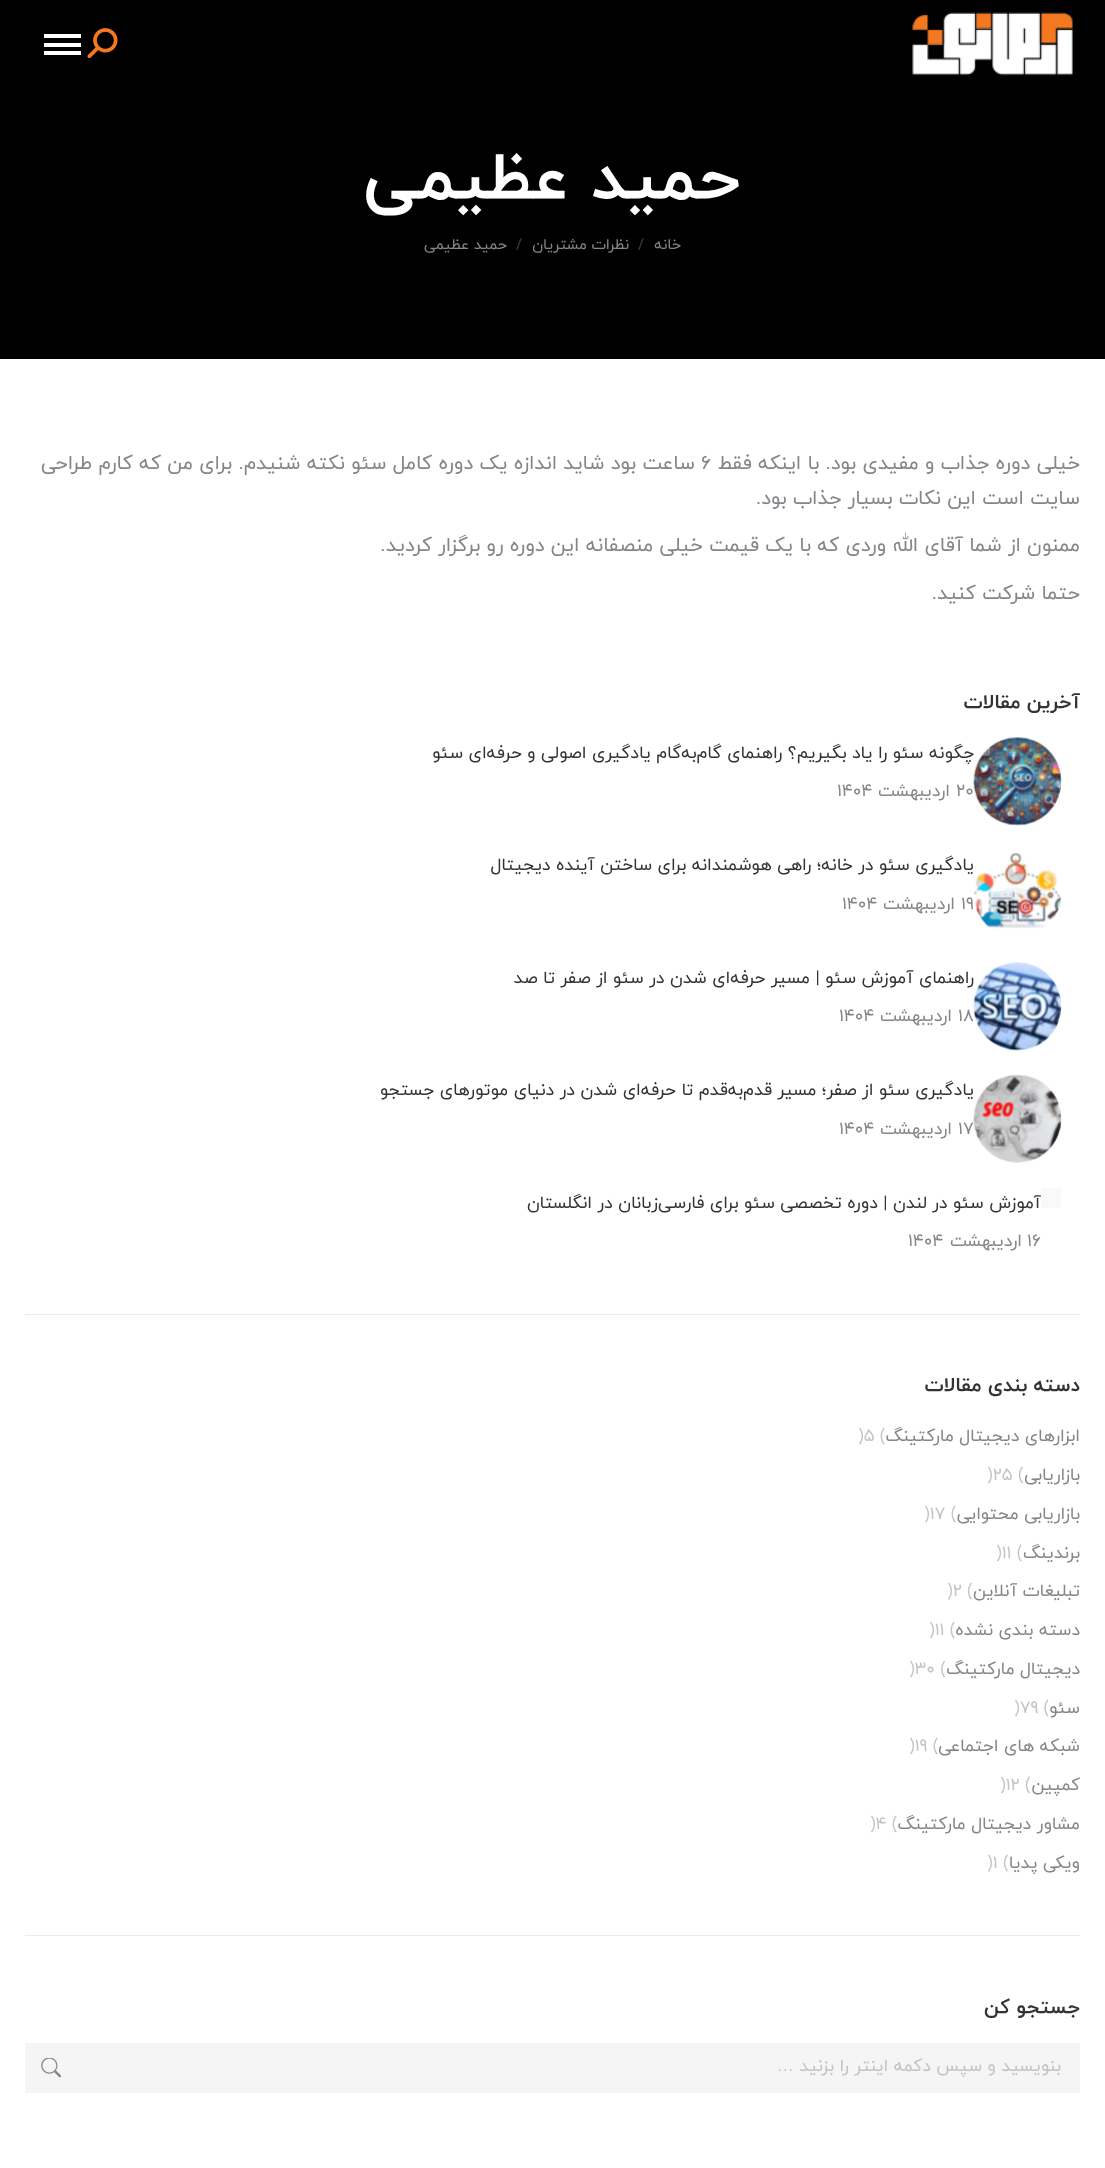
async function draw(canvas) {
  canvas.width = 1105
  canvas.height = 2168
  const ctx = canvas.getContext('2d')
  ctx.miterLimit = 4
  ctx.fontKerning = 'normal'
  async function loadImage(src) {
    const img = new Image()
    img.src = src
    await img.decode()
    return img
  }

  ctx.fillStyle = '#fff'
  ctx.fillRect(0, 0, 1105, 2168)
  ctx.fillStyle = '#000'
  ctx.fillRect(0, 88, 1105, 271)
  ctx.fillStyle = '#00000012'
  ctx.filter = 'blur(9.5px)'
  ctx.beginPath()
  ctx.rect(-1, -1, 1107, 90)
  ctx.fill()
  ctx.filter = 'none'
  ctx.fillStyle = '#000'
  ctx.fillRect(0, 0, 1105, 88)
  ctx.drawImage(await loadImage('image0.png'), 912, 12, 161, 64)
  ctx.drawImage(await loadImage('image1.png'), 87, 28, 31, 31)
  ctx.fillStyle = '#fff'
  ctx.fillRect(44, 34, 37, 4)
  ctx.fillRect(44, 43, 37, 4)
  ctx.fillRect(44, 51, 37, 4)
  ctx.direction = 'rtl'
  ctx.font = 'bold 67.5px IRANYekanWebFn'
  ctx.fillText('حمید عظیمی', 741, 198)
  ctx.font = '15px IRANYekanWebFn'
  ctx.fillStyle = '#85868c'
  ctx.fillText('خانه', 681, 249)
  ctx.direction = 'ltr'
  ctx.fillStyle = '#434346'
  ctx.fillText('/', 638, 249)
  ctx.direction = 'rtl'
  ctx.fillStyle = '#85868c'
  ctx.fillText('نظرات مشتریان', 629, 249)
  ctx.direction = 'ltr'
  ctx.fillStyle = '#434346'
  ctx.fillText('/', 516, 249)
  ctx.direction = 'rtl'
  ctx.fillStyle = '#85868c'
  ctx.fillText('حمید عظیمی', 507, 249)
  ctx.font = '20px IRANYekanWebFn'
  ctx.fillText('خیلی دوره جذاب و مفیدی بود. با اینکه فقط', 1080, 469)
  ctx.direction = 'ltr'
  ctx.fillText('۶', 701, 469)
  ctx.direction = 'rtl'
  ctx.fillText('ساعت بود شاید اندازه یک دوره کامل سئو نکته شنیدم. برای من که کارم طراحی', 695, 469)
  ctx.fillText('سایت است این نکات بسیار جذاب بود.', 1080, 504)
  ctx.fillText('ممنون از شما آقای الله وردی که با یک قیمت خیلی منصفانه این دوره رو برگزار کردید.', 1080, 551)
  ctx.fillText('حتما شرکت کنید.', 1080, 599)
  ctx.font = 'bold 20px IRANYekanWebFn'
  ctx.fillStyle = '#333'
  ctx.fillText('آخرین مقالات', 1080, 708)
  ctx.font = '17.5px IRANYekanWebFn'
  ctx.fillText('چگونه سئو را یاد بگیریم؟ راهنمای گام‌به‌گام یادگیری اصولی و حرفه‌ای سئو', 974, 758)
  ctx.drawImage(await loadImage('image2.png'), 973, 737, 89, 89)
  ctx.direction = 'ltr'
  ctx.fillStyle = '#85868c'
  ctx.fillText('20', 956, 796)
  ctx.direction = 'rtl'
  ctx.fillText('اردیبهشت', 950, 796)
  ctx.direction = 'ltr'
  ctx.fillText('1404', 837, 796)
  ctx.drawImage(await loadImage('image3.png'), 973, 852, 88, 77)
  ctx.direction = 'rtl'
  ctx.fillStyle = '#333'
  ctx.fillText('یادگیری سئو در خانه؛ راهی هوشمندانه برای ساختن آینده دیجیتال', 974, 870)
  ctx.direction = 'ltr'
  ctx.fillStyle = '#85868c'
  ctx.fillText('19', 961, 909)
  ctx.direction = 'rtl'
  ctx.fillText('اردیبهشت', 955, 909)
  ctx.direction = 'ltr'
  ctx.fillText('1404', 842, 909)
  ctx.fillText('18', 958, 1021)
  ctx.drawImage(await loadImage('image4.png'), 973, 962, 89, 89)
  ctx.direction = 'rtl'
  ctx.fillStyle = '#333'
  ctx.fillText('راهنمای آموزش سئو | مسیر حرفه‌ای شدن در سئو از صفر تا صد', 974, 983)
  ctx.fillStyle = '#85868c'
  ctx.fillText('اردیبهشت', 952, 1021)
  ctx.direction = 'ltr'
  ctx.fillText('1404', 839, 1021)
  ctx.fillText('17', 958, 1134)
  ctx.drawImage(await loadImage('image5.png'), 973, 1074, 89, 89)
  ctx.direction = 'rtl'
  ctx.fillStyle = '#333'
  ctx.fillText('یادگیری سئو از صفر؛ مسیر قدم‌به‌قدم تا حرفه‌ای شدن در دنیای موتورهای جستجو', 974, 1095)
  ctx.fillStyle = '#85868c'
  ctx.fillText('اردیبهشت', 952, 1134)
  ctx.direction = 'ltr'
  ctx.fillText('1404', 839, 1134)
  ctx.fillStyle = '#85868c0d'
  ctx.fillRect(1041, 1188, 20, 20)
  ctx.direction = 'rtl'
  ctx.fillStyle = '#333'
  ctx.fillText('آموزش سئو در لندن | دوره تخصصی سئو برای فارسی‌زبانان در انگلستان', 1041, 1208)
  ctx.direction = 'ltr'
  ctx.fillStyle = '#85868c'
  ctx.fillText('16', 1027, 1246)
  ctx.direction = 'rtl'
  ctx.fillText('اردیبهشت', 1022, 1246)
  ctx.direction = 'ltr'
  ctx.fillText('1404', 908, 1246)
  ctx.fillStyle = '#eaeaea'
  ctx.fillRect(25, 1314, 1055, 1)
  ctx.direction = 'rtl'
  ctx.font = 'bold 20px IRANYekanWebFn'
  ctx.fillStyle = '#333'
  ctx.fillText('دسته بندی مقالات', 1080, 1391)
  ctx.font = '17.5px IRANYekanWebFn'
  ctx.fillStyle = '#85868c'
  ctx.fillText('ابزارهای دیجیتال مارکتینگ', 1080, 1441)
  ctx.direction = 'ltr'
  ctx.fillStyle = '#c2c3c6'
  ctx.fillText(')5 (', 858, 1441)
  ctx.direction = 'rtl'
  ctx.fillStyle = '#85868c'
  ctx.fillText('بازاریابی', 1080, 1480)
  ctx.direction = 'ltr'
  ctx.fillStyle = '#c2c3c6'
  ctx.fillText(')25 (', 987, 1480)
  ctx.direction = 'rtl'
  ctx.fillStyle = '#85868c'
  ctx.fillText('بازاریابی محتوایی', 1080, 1519)
  ctx.direction = 'ltr'
  ctx.fillStyle = '#c2c3c6'
  ctx.fillText(')17 (', 924, 1519)
  ctx.direction = 'rtl'
  ctx.fillStyle = '#85868c'
  ctx.fillText('برندینگ', 1080, 1558)
  ctx.direction = 'ltr'
  ctx.fillStyle = '#c2c3c6'
  ctx.fillText(')11 (', 996, 1558)
  ctx.direction = 'rtl'
  ctx.fillStyle = '#85868c'
  ctx.fillText('تبلیغات آنلاین', 1080, 1596)
  ctx.direction = 'ltr'
  ctx.fillStyle = '#c2c3c6'
  ctx.fillText(')2 (', 947, 1596)
  ctx.direction = 'rtl'
  ctx.fillStyle = '#85868c'
  ctx.fillText('دسته بندی نشده', 1080, 1635)
  ctx.direction = 'ltr'
  ctx.fillStyle = '#c2c3c6'
  ctx.fillText(')11 (', 929, 1635)
  ctx.direction = 'rtl'
  ctx.fillStyle = '#85868c'
  ctx.fillText('دیجیتال مارکتینگ', 1080, 1674)
  ctx.direction = 'ltr'
  ctx.fillStyle = '#c2c3c6'
  ctx.fillText(')30 (', 909, 1674)
  ctx.direction = 'rtl'
  ctx.fillStyle = '#85868c'
  ctx.fillText('سئو', 1080, 1713)
  ctx.direction = 'ltr'
  ctx.fillStyle = '#c2c3c6'
  ctx.fillText(')79 (', 1014, 1713)
  ctx.direction = 'rtl'
  ctx.fillStyle = '#85868c'
  ctx.fillText('شبکه های اجتماعی', 1080, 1751)
  ctx.direction = 'ltr'
  ctx.fillStyle = '#c2c3c6'
  ctx.fillText(')19 (', 909, 1751)
  ctx.direction = 'rtl'
  ctx.fillStyle = '#85868c'
  ctx.fillText('کمپین', 1080, 1790)
  ctx.direction = 'ltr'
  ctx.fillStyle = '#c2c3c6'
  ctx.fillText(')12 (', 1000, 1790)
  ctx.direction = 'rtl'
  ctx.fillStyle = '#85868c'
  ctx.fillText('مشاور دیجیتال مارکتینگ', 1080, 1829)
  ctx.direction = 'ltr'
  ctx.fillStyle = '#c2c3c6'
  ctx.fillText(')4 (', 870, 1829)
  ctx.direction = 'rtl'
  ctx.fillStyle = '#85868c'
  ctx.fillText('ویکی پدیا', 1080, 1868)
  ctx.direction = 'ltr'
  ctx.fillStyle = '#c2c3c6'
  ctx.fillText(')1 (', 987, 1868)
  ctx.fillStyle = '#eaeaea'
  ctx.fillRect(25, 1935, 1055, 1)
  ctx.direction = 'rtl'
  ctx.font = 'bold 20px IRANYekanWebFn'
  ctx.fillStyle = '#333'
  ctx.fillText('جستجو کن', 1080, 2013)
  ctx.fillStyle = '#f5f5f5'
  ctx.fillRect(25, 2043, 1055, 50)
  ctx.font = '17.5px IRANYekanWebFn'
  ctx.fillStyle = '#c2c3c6'
  ctx.fillText('بنویسید و سپس دکمه اینتر را بزنید', 1061, 2071)
  ctx.font = '17.5px Liberation Sans'
  ctx.fillText('…', 794, 2071)
  ctx.drawImage(await loadImage('image6.png'), 41, 2058, 20, 20)
}

draw(document.querySelector('canvas'))
